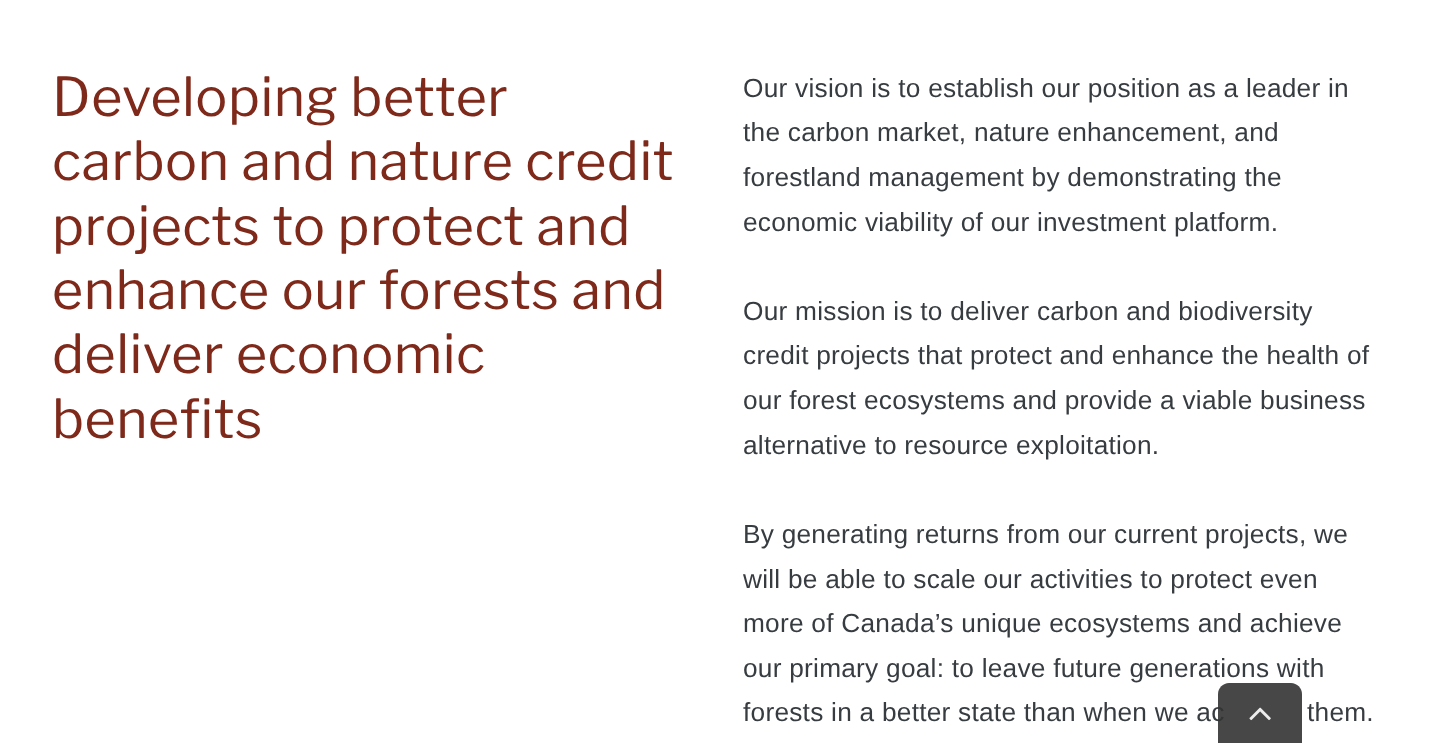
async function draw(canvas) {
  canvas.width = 1433
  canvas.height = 743
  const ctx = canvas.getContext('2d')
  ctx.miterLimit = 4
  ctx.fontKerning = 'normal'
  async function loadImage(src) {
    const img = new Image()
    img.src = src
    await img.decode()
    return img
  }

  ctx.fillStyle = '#fff'
  ctx.fillRect(0, 0, 1433, 743)
  ctx.letterSpacing = '0.5px'
  ctx.font = '100 53.6px Libre Franklin'
  ctx.fillStyle = '#7e291a'
  ctx.fillText('Developing better', 52, 116)
  ctx.fillText('carbon and nature credit', 52, 180)
  ctx.fillText('projects to protect and', 52, 245)
  ctx.fillText('enhance our forests and', 52, 309)
  ctx.fillText('deliver economic', 52, 373)
  ctx.fillText('benefits', 52, 438)
  ctx.letterSpacing = '0.25px'
  ctx.font = '26.25px Liberation Sans'
  ctx.fillStyle = '#373c41'
  ctx.fillText('Our vision is to establish our position as a leader in', 743, 97)
  ctx.fillText('the carbon market, nature enhancement, and', 743, 141)
  ctx.fillText('forestland management by demonstrating the', 743, 186)
  ctx.fillText('economic viability of our investment platform.', 743, 231)
  ctx.fillText('Our mission is to deliver carbon and biodiversity', 743, 320)
  ctx.fillText('credit projects that protect and enhance the health of', 743, 364)
  ctx.fillText('our forest ecosystems and provide a viable business', 743, 409)
  ctx.fillText('alternative to resource exploitation.', 743, 454)
  ctx.fillText('By generating returns from our current projects, we', 743, 543)
  ctx.fillText('will be able to scale our activities to protect even', 743, 588)
  ctx.fillText('more of Canada’s unique ecosystems and achieve', 743, 632)
  ctx.fillText('our primary goal: to leave future generations with', 743, 677)
  ctx.fillText('forests in a better state than when we ac', 743, 721)
  ctx.fillText('them.', 1307, 721)
  ctx.fillStyle = '#333333e6'
  ctx.beginPath()
  ctx.moveTo(1229, 683)
  ctx.lineTo(1291, 683)
  ctx.bezierCurveTo(1297, 683, 1302, 688, 1302, 694)
  ctx.lineTo(1302, 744)
  ctx.lineTo(1218, 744)
  ctx.lineTo(1218, 694)
  ctx.bezierCurveTo(1218, 688, 1223, 683, 1229, 683)
  ctx.closePath()
  ctx.fill()
  ctx.drawImage(await loadImage('image0.png'), 1249, 707, 22, 14)
}

draw(document.querySelector('canvas'))
